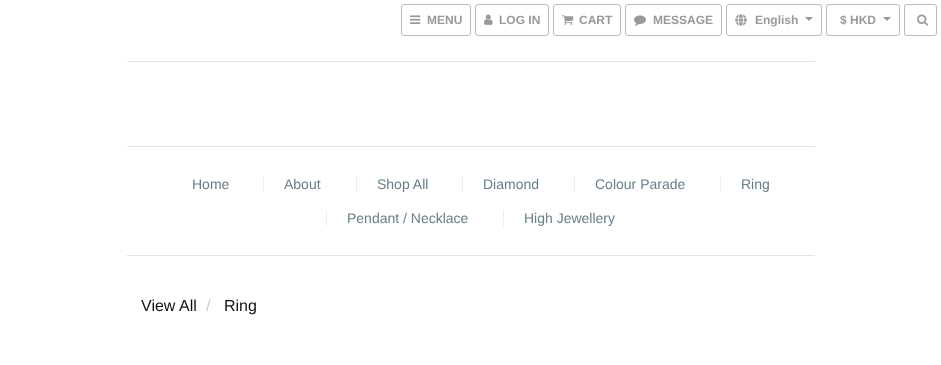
async function draw(canvas) {
  canvas.width = 941
  canvas.height = 365
  const ctx = canvas.getContext('2d')
  ctx.miterLimit = 4
  ctx.fontKerning = 'normal'
  async function loadImage(src) {
    const img = new Image()
    img.src = src
    await img.decode()
    return img
  }

  ctx.fillStyle = '#fff'
  ctx.fillRect(0, 0, 941, 365)
  ctx.beginPath()
  ctx.roundRect(401.5, 4.5, 69, 31, 2.5)
  ctx.strokeStyle = '#bbb'
  ctx.stroke()
  ctx.drawImage(await loadImage('image0.png'), 410, 15, 11, 9)
  ctx.font = 'bold 12px Liberation Sans'
  ctx.fillStyle = '#999'
  ctx.fillText('MENU', 427, 24)
  ctx.beginPath()
  ctx.roundRect(475.5, 4.5, 73, 31, 2.5)
  ctx.stroke()
  ctx.drawImage(await loadImage('image1.png'), 484, 14, 9, 11)
  ctx.fillText('LOG IN', 499, 24)
  ctx.beginPath()
  ctx.roundRect(553.5, 4.5, 67, 31, 2.5)
  ctx.stroke()
  ctx.drawImage(await loadImage('image2.png'), 562, 15, 12, 10)
  ctx.fillText('CART', 579, 24)
  ctx.beginPath()
  ctx.roundRect(625.5, 4.5, 96, 31, 2.5)
  ctx.stroke()
  ctx.drawImage(await loadImage('image3.png'), 634, 15, 12, 11)
  ctx.fillText('MESSAGE', 653, 24)
  ctx.beginPath()
  ctx.roundRect(726.5, 4.5, 95, 31, 2.5)
  ctx.stroke()
  ctx.drawImage(await loadImage('image4.png'), 735, 14, 12, 12)
  ctx.fillText('English', 755, 24)
  ctx.beginPath()
  ctx.moveTo(805, 17)
  ctx.lineTo(813, 17)
  ctx.lineTo(809, 21)
  ctx.closePath()
  ctx.fill()
  ctx.beginPath()
  ctx.roundRect(826.5, 4.5, 73, 31, 2.5)
  ctx.stroke()
  ctx.fillText('$ HKD', 840, 24)
  ctx.beginPath()
  ctx.moveTo(883, 17)
  ctx.lineTo(891, 17)
  ctx.lineTo(887, 21)
  ctx.closePath()
  ctx.fill()
  ctx.beginPath()
  ctx.roundRect(904.5, 4.5, 32, 31, 2.5)
  ctx.stroke()
  ctx.drawImage(await loadImage('image5.png'), 917, 14, 11, 12)
  ctx.fillStyle = '#e2e2e2'
  ctx.fillRect(127, 61, 688, 1)
  ctx.fillRect(127, 146, 688, 1)
  ctx.fillRect(127, 255, 688, 1)
  ctx.font = '14px Liberation Sans'
  ctx.fillStyle = '#677e87'
  ctx.fillText('Home', 192, 189)
  ctx.fillText('About', 284, 189)
  ctx.fillStyle = '#eee'
  ctx.fillRect(263, 176, 1, 16)
  ctx.fillStyle = '#677e87'
  ctx.fillText('Shop All', 377, 189)
  ctx.fillStyle = '#eee'
  ctx.fillRect(356, 176, 1, 16)
  ctx.fillStyle = '#677e87'
  ctx.fillText('Diamond', 483, 189)
  ctx.fillStyle = '#eee'
  ctx.fillRect(462, 176, 1, 16)
  ctx.fillStyle = '#677e87'
  ctx.fillText('Colour Parade', 595, 189)
  ctx.fillStyle = '#eee'
  ctx.fillRect(574, 176, 1, 16)
  ctx.fillStyle = '#677e87'
  ctx.fillText('Ring', 741, 189)
  ctx.fillStyle = '#eee'
  ctx.fillRect(720, 176, 1, 16)
  ctx.fillStyle = '#677e87'
  ctx.fillText('Pendant / Necklace', 347, 223)
  ctx.fillStyle = '#eee'
  ctx.fillRect(326, 210, 1, 16)
  ctx.fillStyle = '#677e87'
  ctx.fillText('High Jewellery', 524, 223)
  ctx.fillStyle = '#eee'
  ctx.fillRect(503, 210, 1, 16)
  ctx.font = '16px Liberation Sans'
  ctx.fillStyle = '#111'
  ctx.fillText('View All', 141, 311)
  ctx.fillStyle = '#ccc'
  ctx.fillText('/', 206, 311)
  ctx.fillStyle = '#111'
  ctx.fillText('Ring', 224, 311)
}

draw(document.querySelector('canvas'))
